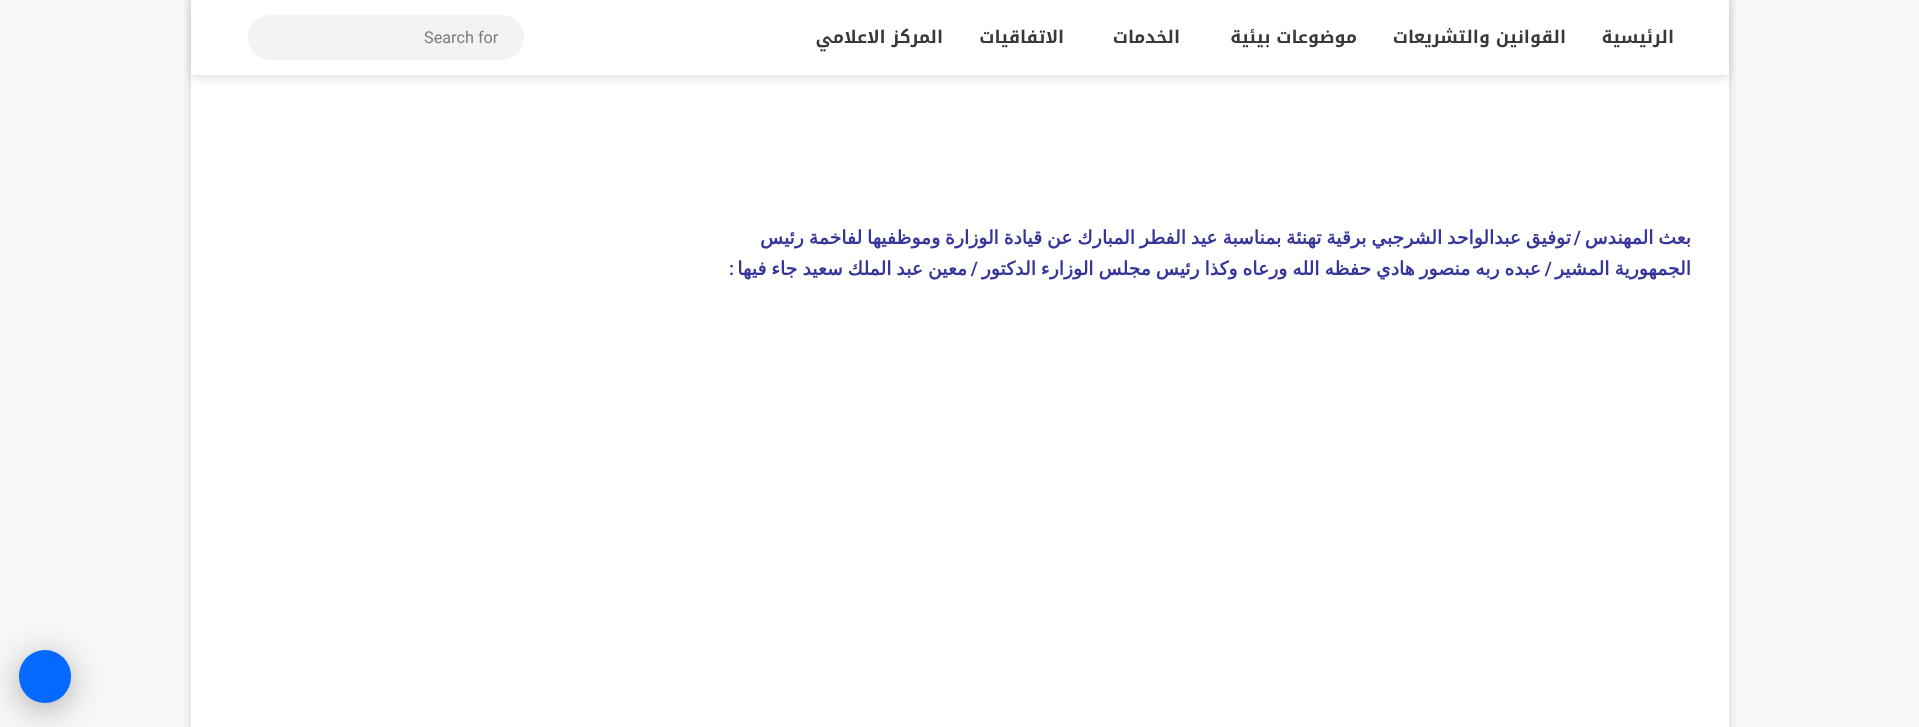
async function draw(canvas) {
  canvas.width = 1919
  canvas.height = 727
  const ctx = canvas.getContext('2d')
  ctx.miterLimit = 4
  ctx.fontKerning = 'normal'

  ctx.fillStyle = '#f7f7f7'
  ctx.fillRect(0, 0, 1919, 727)
  ctx.fillStyle = '#ababab80'
  ctx.filter = 'blur(4.5px)'
  ctx.beginPath()
  ctx.rect(191, -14, 1538, 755)
  ctx.fill()
  ctx.filter = 'none'
  ctx.fillStyle = '#fff'
  ctx.fillRect(191, 0, 1538, 727)
  ctx.save()
  ctx.beginPath()
  ctx.moveTo(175, 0)
  ctx.lineTo(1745, 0)
  ctx.lineTo(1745, 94)
  ctx.lineTo(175, 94)
  ctx.closePath()
  ctx.moveTo(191, 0)
  ctx.lineTo(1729, 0)
  ctx.lineTo(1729, 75)
  ctx.lineTo(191, 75)
  ctx.closePath()
  ctx.clip('evenodd')
  ctx.fillStyle = '#63636333'
  ctx.filter = 'blur(5px)'
  ctx.beginPath()
  ctx.rect(191, 3, 1538, 75)
  ctx.fill()
  ctx.filter = 'none'
  ctx.restore()
  ctx.fillStyle = '#fffffff2'
  ctx.fillRect(191, 5, 1538, 70)
  ctx.direction = 'rtl'
  ctx.font = 'bold 17.5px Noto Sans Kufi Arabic'
  ctx.fillStyle = '#37393e'
  ctx.fillText('الرئيسية', 1674, 43)
  ctx.fillText('القوانين والتشريعات', 1566, 43)
  ctx.fillText('موضوعات بيئية', 1357, 43)
  ctx.fillText('الخدمات', 1180, 43)
  ctx.fillText('الاتفاقيات', 1064, 43)
  ctx.fillText('المركز الاعلامي', 943, 43)
  ctx.fillStyle = '#f3f3f3'
  ctx.beginPath()
  ctx.roundRect(248, 15, 276, 45, 22.5)
  ctx.fill()
  ctx.direction = 'ltr'
  ctx.font = '16.25px Roboto'
  ctx.fillStyle = '#7c7c7c'
  ctx.fillText('Search for', 424, 43)
  ctx.wordSpacing = '-1.1px'
  ctx.direction = 'rtl'
  ctx.font = 'bold 18.75px DejaVu Sans'
  ctx.fillStyle = '#35359a'
  ctx.fillText('بعث المهندس', 1691, 244)
  ctx.wordSpacing = '0px'
  ctx.font = '600 18.75px Roboto'
  ctx.fillText('/', 1581, 244)
  ctx.wordSpacing = '-1.1px'
  ctx.font = 'bold 18.75px DejaVu Sans'
  ctx.fillText('توفيق عبدالواحد الشرجبي برقية تهنئة بمناسبة عيد الفطر المبارك عن قيادة الوزارة وموظفيها لفاخمة رئيس', 1571, 244)
  ctx.wordSpacing = '-1px'
  ctx.fillText('الجمهورية المشير', 1691, 275)
  ctx.wordSpacing = '0px'
  ctx.font = '600 18.75px Roboto'
  ctx.fillText('/', 1552, 275)
  ctx.wordSpacing = '-1px'
  ctx.font = 'bold 18.75px DejaVu Sans'
  ctx.fillText('عبده ربه منصور هادي حفظه الله ورعاه وكذا رئيس مجلس الوزارء الدكتور', 1541, 275)
  ctx.wordSpacing = '0px'
  ctx.font = '600 18.75px Roboto'
  ctx.fillText('/', 978, 275)
  ctx.wordSpacing = '-1px'
  ctx.font = 'bold 18.75px DejaVu Sans'
  ctx.fillText('معين عبد الملك سعيد جاء فيها', 967, 275)
  ctx.wordSpacing = '0px'
  ctx.font = '600 18.75px Roboto'
  ctx.fillText(':', 734, 275)
  ctx.fillStyle = '#0000004d'
  ctx.filter = 'blur(15.5px)'
  ctx.beginPath()
  ctx.roundRect(19, 656, 52, 53, 26)
  ctx.fill()
  ctx.filter = 'none'
  ctx.fillStyle = '#0669ff'
  ctx.beginPath()
  ctx.roundRect(19, 650, 52, 53, 26)
  ctx.fill()
}

draw(document.querySelector('canvas'))
